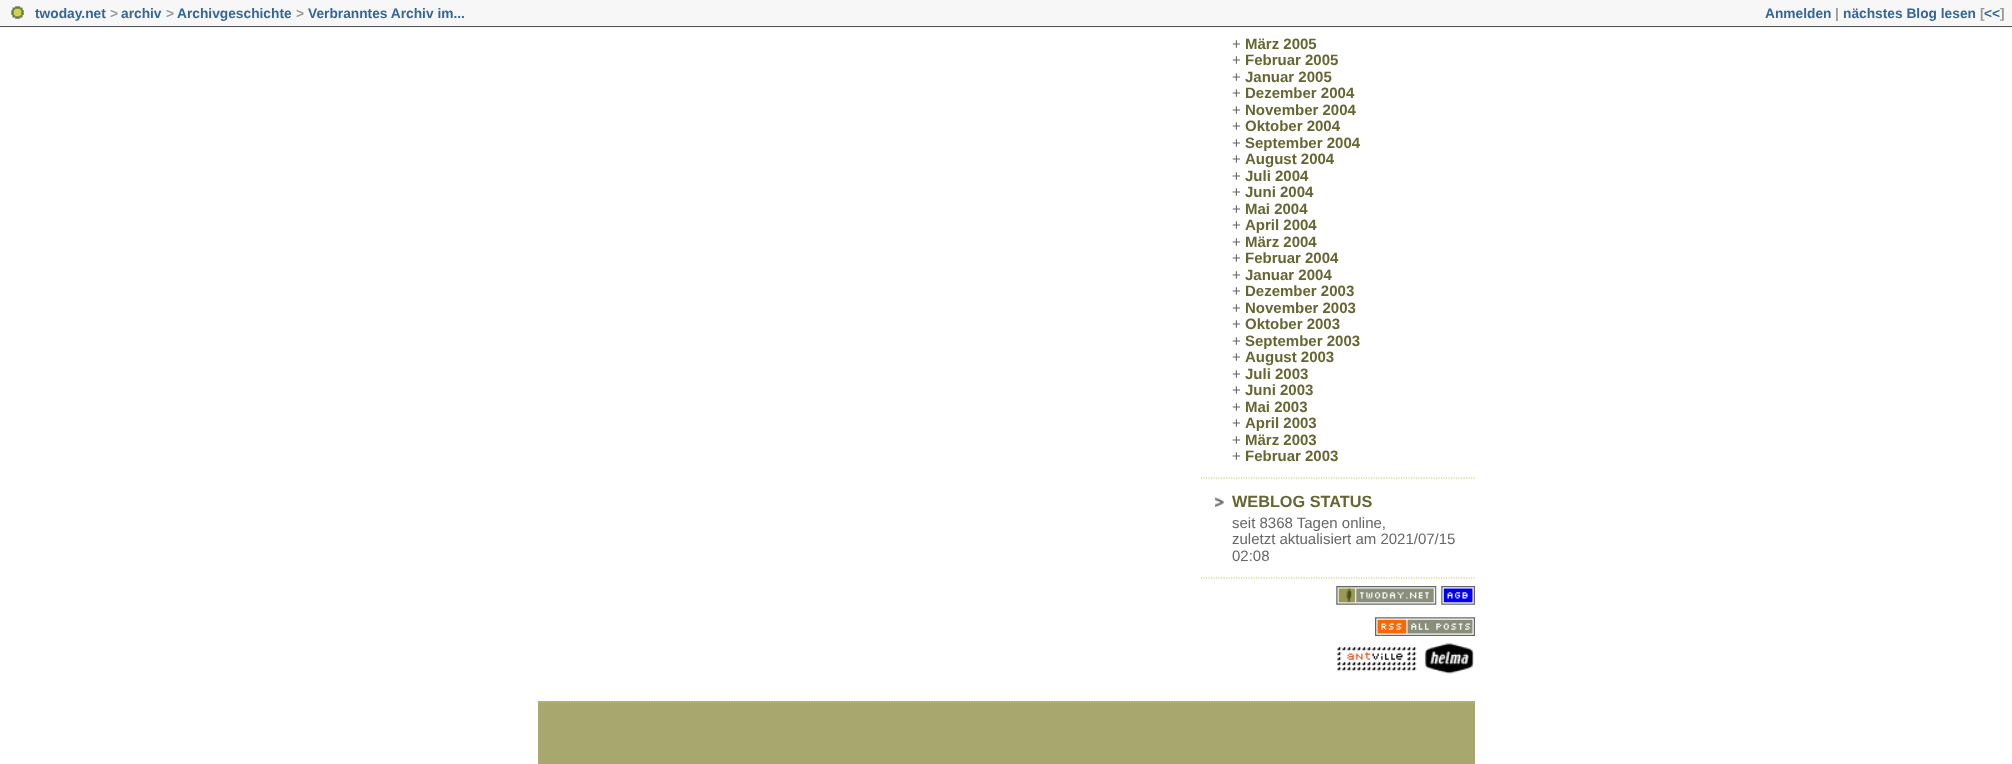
async function draw(canvas) {
  canvas.width = 2012
  canvas.height = 764
  const ctx = canvas.getContext('2d')
  ctx.miterLimit = 4
  ctx.fontKerning = 'normal'
  async function loadImage(src) {
    const img = new Image()
    img.src = src
    await img.decode()
    return img
  }

  ctx.fillStyle = '#fff'
  ctx.fillRect(0, 0, 2012, 764)
  ctx.fillStyle = '#f7f7f7'
  ctx.fillRect(0, 0, 2012, 28)
  ctx.fillStyle = '#555'
  ctx.fillRect(0, 26, 2012, 1)
  ctx.drawImage(await loadImage('image0.png'), 11, 6, 13, 13)
  ctx.font = 'bold 13.75px Liberation Sans'
  ctx.fillStyle = '#369'
  ctx.fillText('twoday.net', 35, 18)
  ctx.fillStyle = '#999'
  ctx.fillText('>', 110, 18)
  ctx.fillStyle = '#369'
  ctx.fillText('archiv', 121, 18)
  ctx.fillStyle = '#999'
  ctx.fillText('>', 166, 18)
  ctx.fillStyle = '#369'
  ctx.fillText('Archivgeschichte', 177, 18)
  ctx.fillStyle = '#999'
  ctx.fillText('>', 296, 18)
  ctx.fillStyle = '#369'
  ctx.fillText('Verbranntes Archiv im...', 308, 18)
  ctx.fillText('Anmelden', 1765, 18)
  ctx.fillStyle = '#999'
  ctx.fillText('|', 1835, 18)
  ctx.fillStyle = '#369'
  ctx.fillText('nächstes Blog lesen', 1843, 18)
  ctx.fillStyle = '#999'
  ctx.fillText('[', 1980, 18)
  ctx.fillStyle = '#369'
  ctx.fillText('<<', 1984, 18)
  ctx.fillStyle = '#999'
  ctx.fillText(']', 2000, 18)
  ctx.beginPath()
  ctx.moveTo(1201, 478)
  ctx.lineTo(1475, 478)
  ctx.strokeStyle = '#cc6'
  ctx.lineWidth = 1.2
  ctx.setLineDash([1.25, 1.25])
  ctx.stroke()
  ctx.font = '15px Liberation Sans'
  ctx.fillStyle = '#666'
  ctx.fillText('+', 1232, 49)
  ctx.font = 'bold 15px Liberation Sans'
  ctx.fillStyle = '#663'
  ctx.fillText('März 2005', 1245, 49)
  ctx.font = '15px Liberation Sans'
  ctx.fillStyle = '#666'
  ctx.fillText('+', 1232, 65)
  ctx.font = 'bold 15px Liberation Sans'
  ctx.fillStyle = '#663'
  ctx.fillText('Februar 2005', 1245, 65)
  ctx.font = '15px Liberation Sans'
  ctx.fillStyle = '#666'
  ctx.fillText('+', 1232, 82)
  ctx.font = 'bold 15px Liberation Sans'
  ctx.fillStyle = '#663'
  ctx.fillText('Januar 2005', 1245, 82)
  ctx.font = '15px Liberation Sans'
  ctx.fillStyle = '#666'
  ctx.fillText('+', 1232, 98)
  ctx.font = 'bold 15px Liberation Sans'
  ctx.fillStyle = '#663'
  ctx.fillText('Dezember 2004', 1245, 98)
  ctx.font = '15px Liberation Sans'
  ctx.fillStyle = '#666'
  ctx.fillText('+', 1232, 115)
  ctx.font = 'bold 15px Liberation Sans'
  ctx.fillStyle = '#663'
  ctx.fillText('November 2004', 1245, 115)
  ctx.font = '15px Liberation Sans'
  ctx.fillStyle = '#666'
  ctx.fillText('+', 1232, 131)
  ctx.font = 'bold 15px Liberation Sans'
  ctx.fillStyle = '#663'
  ctx.fillText('Oktober 2004', 1245, 131)
  ctx.font = '15px Liberation Sans'
  ctx.fillStyle = '#666'
  ctx.fillText('+', 1232, 148)
  ctx.font = 'bold 15px Liberation Sans'
  ctx.fillStyle = '#663'
  ctx.fillText('September 2004', 1245, 148)
  ctx.font = '15px Liberation Sans'
  ctx.fillStyle = '#666'
  ctx.fillText('+', 1232, 164)
  ctx.font = 'bold 15px Liberation Sans'
  ctx.fillStyle = '#663'
  ctx.fillText('August 2004', 1245, 164)
  ctx.font = '15px Liberation Sans'
  ctx.fillStyle = '#666'
  ctx.fillText('+', 1232, 181)
  ctx.font = 'bold 15px Liberation Sans'
  ctx.fillStyle = '#663'
  ctx.fillText('Juli 2004', 1245, 181)
  ctx.font = '15px Liberation Sans'
  ctx.fillStyle = '#666'
  ctx.fillText('+', 1232, 197)
  ctx.font = 'bold 15px Liberation Sans'
  ctx.fillStyle = '#663'
  ctx.fillText('Juni 2004', 1245, 197)
  ctx.font = '15px Liberation Sans'
  ctx.fillStyle = '#666'
  ctx.fillText('+', 1232, 214)
  ctx.font = 'bold 15px Liberation Sans'
  ctx.fillStyle = '#663'
  ctx.fillText('Mai 2004', 1245, 214)
  ctx.font = '15px Liberation Sans'
  ctx.fillStyle = '#666'
  ctx.fillText('+', 1232, 230)
  ctx.font = 'bold 15px Liberation Sans'
  ctx.fillStyle = '#663'
  ctx.fillText('April 2004', 1245, 230)
  ctx.font = '15px Liberation Sans'
  ctx.fillStyle = '#666'
  ctx.fillText('+', 1232, 247)
  ctx.font = 'bold 15px Liberation Sans'
  ctx.fillStyle = '#663'
  ctx.fillText('März 2004', 1245, 247)
  ctx.font = '15px Liberation Sans'
  ctx.fillStyle = '#666'
  ctx.fillText('+', 1232, 263)
  ctx.font = 'bold 15px Liberation Sans'
  ctx.fillStyle = '#663'
  ctx.fillText('Februar 2004', 1245, 263)
  ctx.font = '15px Liberation Sans'
  ctx.fillStyle = '#666'
  ctx.fillText('+', 1232, 280)
  ctx.font = 'bold 15px Liberation Sans'
  ctx.fillStyle = '#663'
  ctx.fillText('Januar 2004', 1245, 280)
  ctx.font = '15px Liberation Sans'
  ctx.fillStyle = '#666'
  ctx.fillText('+', 1232, 296)
  ctx.font = 'bold 15px Liberation Sans'
  ctx.fillStyle = '#663'
  ctx.fillText('Dezember 2003', 1245, 296)
  ctx.font = '15px Liberation Sans'
  ctx.fillStyle = '#666'
  ctx.fillText('+', 1232, 313)
  ctx.font = 'bold 15px Liberation Sans'
  ctx.fillStyle = '#663'
  ctx.fillText('November 2003', 1245, 313)
  ctx.font = '15px Liberation Sans'
  ctx.fillStyle = '#666'
  ctx.fillText('+', 1232, 329)
  ctx.font = 'bold 15px Liberation Sans'
  ctx.fillStyle = '#663'
  ctx.fillText('Oktober 2003', 1245, 329)
  ctx.font = '15px Liberation Sans'
  ctx.fillStyle = '#666'
  ctx.fillText('+', 1232, 346)
  ctx.font = 'bold 15px Liberation Sans'
  ctx.fillStyle = '#663'
  ctx.fillText('September 2003', 1245, 346)
  ctx.font = '15px Liberation Sans'
  ctx.fillStyle = '#666'
  ctx.fillText('+', 1232, 362)
  ctx.font = 'bold 15px Liberation Sans'
  ctx.fillStyle = '#663'
  ctx.fillText('August 2003', 1245, 362)
  ctx.font = '15px Liberation Sans'
  ctx.fillStyle = '#666'
  ctx.fillText('+', 1232, 379)
  ctx.font = 'bold 15px Liberation Sans'
  ctx.fillStyle = '#663'
  ctx.fillText('Juli 2003', 1245, 379)
  ctx.font = '15px Liberation Sans'
  ctx.fillStyle = '#666'
  ctx.fillText('+', 1232, 395)
  ctx.font = 'bold 15px Liberation Sans'
  ctx.fillStyle = '#663'
  ctx.fillText('Juni 2003', 1245, 395)
  ctx.font = '15px Liberation Sans'
  ctx.fillStyle = '#666'
  ctx.fillText('+', 1232, 412)
  ctx.font = 'bold 15px Liberation Sans'
  ctx.fillStyle = '#663'
  ctx.fillText('Mai 2003', 1245, 412)
  ctx.font = '15px Liberation Sans'
  ctx.fillStyle = '#666'
  ctx.fillText('+', 1232, 428)
  ctx.font = 'bold 15px Liberation Sans'
  ctx.fillStyle = '#663'
  ctx.fillText('April 2003', 1245, 428)
  ctx.font = '15px Liberation Sans'
  ctx.fillStyle = '#666'
  ctx.fillText('+', 1232, 445)
  ctx.font = 'bold 15px Liberation Sans'
  ctx.fillStyle = '#663'
  ctx.fillText('März 2003', 1245, 445)
  ctx.font = '15px Liberation Sans'
  ctx.fillStyle = '#666'
  ctx.fillText('+', 1232, 461)
  ctx.font = 'bold 15px Liberation Sans'
  ctx.fillStyle = '#663'
  ctx.fillText('Februar 2003', 1245, 461)
  ctx.drawImage(await loadImage('image1.png'), 1214, 497, 10, 11)
  ctx.beginPath()
  ctx.moveTo(1201, 578)
  ctx.lineTo(1475, 578)
  ctx.stroke()
  ctx.font = 'bold 16.25px Liberation Sans'
  ctx.fillText('WEBLOG STATUS', 1232, 507)
  ctx.font = '15px Liberation Sans'
  ctx.fillStyle = '#666'
  ctx.fillText('seit 8368 Tagen online,', 1232, 528)
  ctx.fillText('zuletzt aktualisiert am 2021/07/15', 1232, 544)
  ctx.fillText('02:08', 1232, 561)
  ctx.drawImage(await loadImage('image2.png'), 1336, 586, 101, 19)
  ctx.drawImage(await loadImage('image3.png'), 1441, 586, 34, 19)
  ctx.drawImage(await loadImage('image4.png'), 1375, 617, 100, 19)
  ctx.drawImage(await loadImage('image5.png'), 1337, 647, 80, 25)
  ctx.drawImage(await loadImage('image6.png'), 1424, 643, 50, 31)
  ctx.fillStyle = '#a8a86e'
  ctx.fillRect(538, 701, 937, 63)
  ctx.beginPath()
  ctx.moveTo(537.5, 702)
  ctx.lineTo(1475, 702)
  ctx.stroke()
}

draw(document.querySelector('canvas'))
